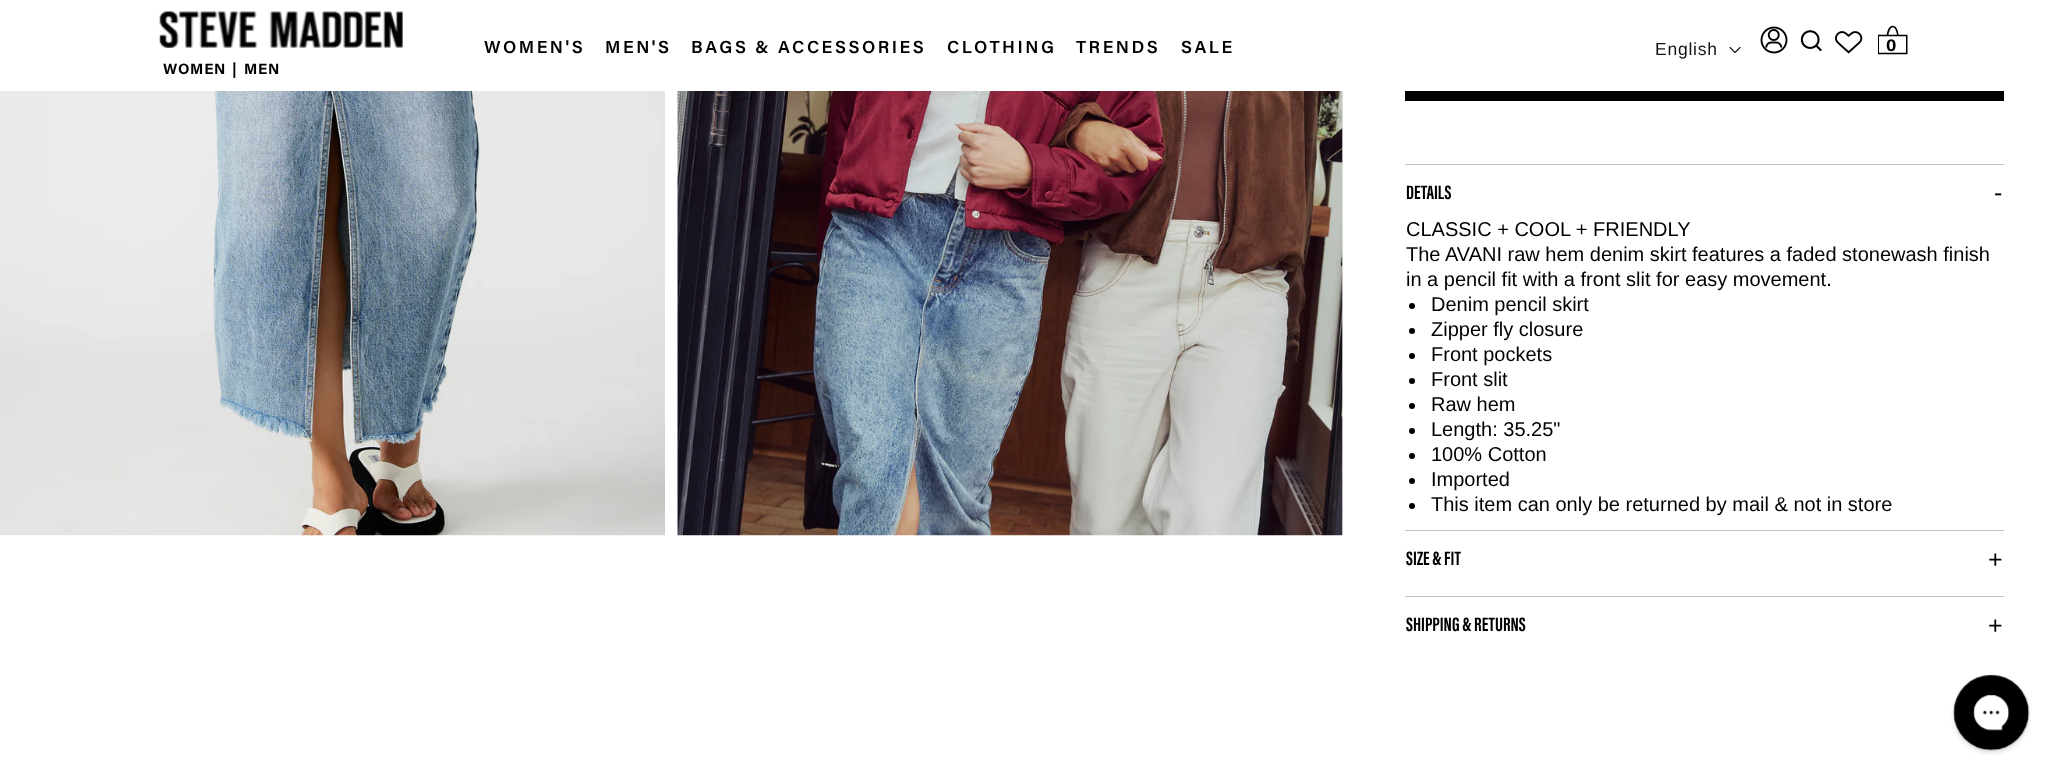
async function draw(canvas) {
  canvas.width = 2066
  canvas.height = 783
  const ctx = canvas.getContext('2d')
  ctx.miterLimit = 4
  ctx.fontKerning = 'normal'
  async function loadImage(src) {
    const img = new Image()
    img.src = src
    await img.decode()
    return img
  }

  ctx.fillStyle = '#fff'
  ctx.fillRect(0, 0, 2066, 783)
  ctx.letterSpacing = '2.5px'
  ctx.font = '600 17.5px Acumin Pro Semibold'
  ctx.fillStyle = '#000'
  ctx.fillText('WOMEN\'S', 484, 53)
  ctx.fillText('MEN\'S', 605, 53)
  ctx.fillText('BAGS & ACCESSORIES', 691, 53)
  ctx.fillText('CLOTHING', 947, 53)
  ctx.fillText('TRENDS', 1076, 53)
  ctx.fillText('SALE', 1181, 53)
  ctx.letterSpacing = '0.75px'
  ctx.font = '17.5px Liberation Sans'
  ctx.fillStyle = '#121212'
  ctx.fillText('English', 1655, 55)
  ctx.drawImage(await loadImage('image0.png'), 1729, 47, 12, 6)
  ctx.drawImage(await loadImage('image1.png'), 1760, 26, 28, 28)
  ctx.drawImage(await loadImage('image2.png'), 1800, 30, 22, 21)
  ctx.drawImage(await loadImage('image3.png'), 1835, 31, 28, 23)
  ctx.drawImage(await loadImage('image4.png'), 1878, 25, 30, 30)
  ctx.font = 'bold 17.5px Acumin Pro'
  ctx.fillStyle = '#000'
  ctx.fillText('0', 1886, 51)
  ctx.drawImage(await loadImage('image5.png'), 159, 11, 244, 37)
  ctx.font = 'bold 15px Acumin Pro'
  ctx.fillText('WOMEN', 163, 74)
  ctx.fillText('|', 232, 74)
  ctx.fillText('MEN', 244, 74)
  ctx.drawImage(await loadImage('image6.png'), 0, 91, 665, 445)
  ctx.fillStyle = '#e7e7e7'
  ctx.fillRect(1342, 91, 1, 444)
  ctx.drawImage(await loadImage('image7.png'), 677, 91, 666, 445)
  ctx.fillStyle = '#000'
  ctx.fillRect(1405, 91, 599, 10)
  ctx.fillStyle = '#bdc3c7'
  ctx.fillRect(1405, 164, 599, 1)
  ctx.letterSpacing = '0px'
  ctx.font = 'bold 20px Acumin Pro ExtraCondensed'
  ctx.fillStyle = '#000'
  ctx.fillText('DETAILS', 1406, 199)
  ctx.letterSpacing = '1px'
  ctx.font = '25px Arimo'
  ctx.fillText('-', 1994, 201)
  ctx.letterSpacing = '0px'
  ctx.font = '20px Arimo'
  ctx.fillText('CLASSIC + COOL + FRIENDLY', 1406, 236)
  ctx.fillText('The AVANI raw hem denim skirt features a faded stonewash finish', 1406, 261)
  ctx.fillText('in a pencil fit with a front slit for easy movement.', 1406, 286)
  ctx.beginPath()
  ctx.arc(1412, 306, 3, 0, 2 * Math.PI)
  ctx.fill()
  ctx.fillText('Denim pencil skirt', 1431, 311)
  ctx.beginPath()
  ctx.arc(1412, 331, 3, 0, 2 * Math.PI)
  ctx.fill()
  ctx.fillText('Zipper fly closure', 1431, 336)
  ctx.beginPath()
  ctx.arc(1412, 356, 3, 0, 2 * Math.PI)
  ctx.fill()
  ctx.fillText('Front pockets', 1431, 361)
  ctx.beginPath()
  ctx.arc(1412, 381, 3, 0, 2 * Math.PI)
  ctx.fill()
  ctx.fillText('Front slit', 1431, 386)
  ctx.beginPath()
  ctx.arc(1412, 406, 3, 0, 2 * Math.PI)
  ctx.fill()
  ctx.fillText('Raw hem', 1431, 411)
  ctx.beginPath()
  ctx.arc(1412, 431, 3, 0, 2 * Math.PI)
  ctx.fill()
  ctx.fillText('Length: 35.25"', 1431, 436)
  ctx.beginPath()
  ctx.arc(1412, 456, 3, 0, 2 * Math.PI)
  ctx.fill()
  ctx.fillText('100% Cotton', 1431, 461)
  ctx.beginPath()
  ctx.arc(1412, 481, 3, 0, 2 * Math.PI)
  ctx.fill()
  ctx.fillText('Imported', 1431, 486)
  ctx.beginPath()
  ctx.arc(1412, 506, 3, 0, 2 * Math.PI)
  ctx.fill()
  ctx.fillText('This item can only be returned by mail & not in store', 1431, 511)
  ctx.fillStyle = '#bdc3c7'
  ctx.fillRect(1405, 530, 599, 1)
  ctx.font = 'bold 20px Acumin Pro ExtraCondensed'
  ctx.fillStyle = '#000'
  ctx.fillText('SIZE & FIT', 1406, 565)
  ctx.letterSpacing = '1px'
  ctx.font = '25px Arimo'
  ctx.fillText('+', 1988, 568)
  ctx.fillStyle = '#bdc3c7'
  ctx.fillRect(1405, 596, 599, 1)
  ctx.letterSpacing = '0px'
  ctx.font = 'bold 20px Acumin Pro ExtraCondensed'
  ctx.fillStyle = '#000'
  ctx.fillText('SHIPPING & RETURNS', 1406, 631)
  ctx.letterSpacing = '1px'
  ctx.font = '25px Arimo'
  ctx.fillText('+', 1988, 634)
  ctx.drawImage(await loadImage('image8.png'), 1951, 674, 80, 81)
}

draw(document.querySelector('canvas'))
